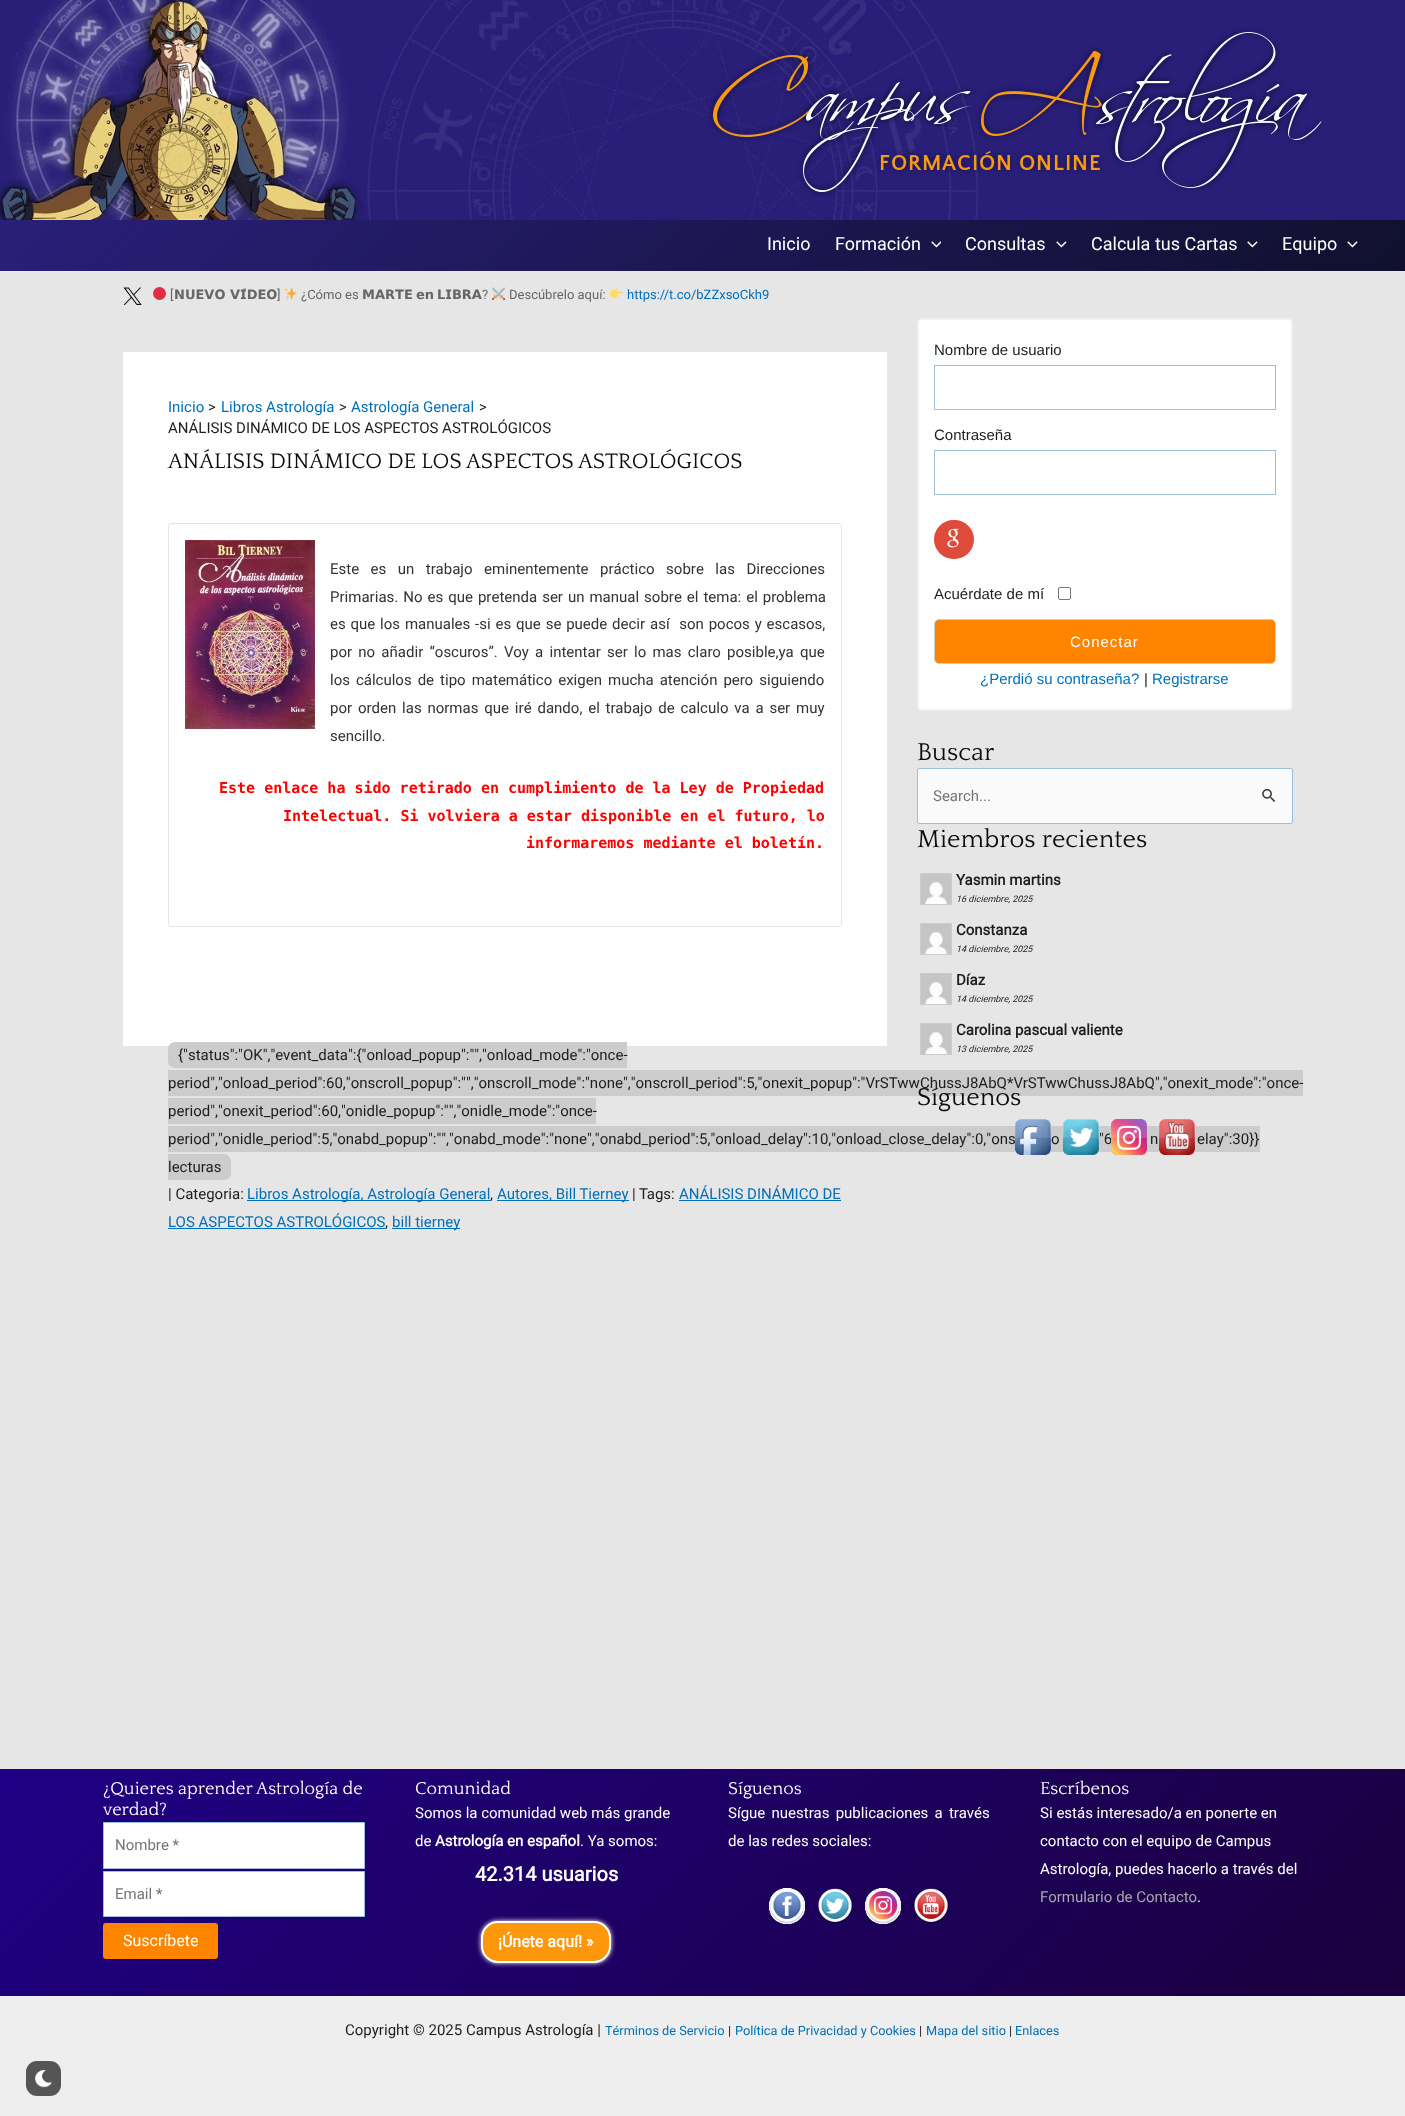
async function draw(canvas) {
  canvas.width = 1405
  canvas.height = 2116
  const ctx = canvas.getContext('2d')
  ctx.miterLimit = 4
  ctx.fontKerning = 'normal'
  async function loadImage(src) {
    const img = new Image()
    img.src = src
    await img.decode()
    return img
  }
  let gradient

  ctx.fillStyle = '#e6e6e6'
  ctx.fillRect(0, 0, 1405, 2116)
  ctx.drawImage(await loadImage('image0.png'), 0, 0, 1405, 220)
  ctx.drawImage(await loadImage('image1.png'), 708, 28, 615, 169)
  gradient = ctx.createLinearGradient(338, -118, 1067, 610)
  gradient.addColorStop(0, '#291f79')
  gradient.addColorStop(1, '#10102e')
  ctx.fillStyle = gradient
  ctx.fillRect(0, 220, 1405, 51)
  ctx.fillStyle = '#eaeaea'
  ctx.fillRect(0, 271, 1405, 1)
  ctx.font = '18px Heebo'
  ctx.fillStyle = '#fff'
  ctx.fillText('Inicio', 767, 250)
  ctx.fillText('Formación', 835, 250)
  ctx.drawImage(await loadImage('image2.png'), 931, 241, 10, 7)
  ctx.fillText('Consultas', 965, 250)
  ctx.drawImage(await loadImage('image3.png'), 1056, 241, 11, 7)
  ctx.fillText('Calcula tus Cartas', 1091, 250)
  ctx.drawImage(await loadImage('image4.png'), 1247, 241, 11, 7)
  ctx.fillText('Equipo', 1282, 250)
  ctx.drawImage(await loadImage('image5.png'), 1347, 241, 11, 7)
  ctx.drawImage(await loadImage('image6.png'), 123, 287, 19, 18)
  ctx.fillStyle = '#dd2e44'
  ctx.beginPath()
  ctx.arc(159.5, 293.5, 6.5, 0, 2 * Math.PI)
  ctx.fill()
  ctx.font = '13px Heebo'
  ctx.fillStyle = '#666'
  ctx.fillText('[', 170, 299)
  ctx.font = 'bold 13px DejaVu Sans'
  ctx.fillText('𝗡𝗨𝗘𝗩𝗢 𝗩𝗜́𝗗𝗘𝗢', 174, 299)
  ctx.font = '13px Heebo'
  ctx.fillText(']', 277, 299)
  ctx.drawImage(await loadImage('image7.png'), 284, 287, 13, 13)
  ctx.fillText('¿Cómo es', 301, 299)
  ctx.font = 'bold 13px DejaVu Sans'
  ctx.fillText('𝗠𝗔𝗥𝗧𝗘', 362, 299)
  ctx.fillText('𝗲𝗻', 416, 299)
  ctx.fillText('𝗟𝗜𝗕𝗥𝗔', 437, 299)
  ctx.font = '13px Heebo'
  ctx.fillText('?', 482, 299)
  ctx.drawImage(await loadImage('image8.png'), 492, 287, 13, 13)
  ctx.fillText('Descúbrelo aquí:', 509, 299)
  ctx.drawImage(await loadImage('image9.png'), 610, 288, 13, 11)
  ctx.fillStyle = '#0170b9'
  ctx.fillText('https://t.co/bZZxsoCkh9', 627, 299)
  ctx.fillStyle = '#fff'
  ctx.fillRect(123, 352, 764, 694)
  ctx.font = '15px Heebo'
  ctx.fillStyle = '#0170b9'
  ctx.fillText('Inicio', 168, 412)
  ctx.fillStyle = '#1c1e22'
  ctx.fillText('>', 208, 412)
  ctx.fillStyle = '#0170b9'
  ctx.fillText('Libros Astrología', 221, 412)
  ctx.fillStyle = '#1c1e22'
  ctx.fillText('>', 339, 412)
  ctx.fillStyle = '#0170b9'
  ctx.fillText('Astrología General', 351, 412)
  ctx.fillStyle = '#1c1e22'
  ctx.fillText('>', 479, 412)
  ctx.fillText('ANÁLISIS DINÁMICO DE LOS ASPECTOS ASTROLÓGICOS', 168, 433)
  ctx.font = '22px Quattrocento'
  ctx.fillStyle = '#0a0a0a'
  ctx.fillText('ANÁLISIS DINÁMICO DE LOS ASPECTOS ASTROLÓGICOS', 168, 468)
  ctx.beginPath()
  ctx.roundRect(168.5, 523.5, 673, 403, 2.5)
  ctx.strokeStyle = '#e5e5e5'
  ctx.stroke()
  ctx.drawImage(await loadImage('image10.png'), 185, 540, 130, 189)
  ctx.wordSpacing = '7.75px'
  ctx.font = '15px Heebo'
  ctx.fillStyle = '#333'
  ctx.fillText('Este es un trabajo eminentemente práctico sobre las Direcciones', 330, 574)
  ctx.wordSpacing = '1.25px'
  ctx.fillText('Primarias. No es que pretenda ser un manual sobre el tema: el problema', 330, 602)
  ctx.wordSpacing = '1.1px'
  ctx.fillText('es que los manuales -si es que se puede decir así  son pocos y escasos,', 330, 629)
  ctx.wordSpacing = '2.5px'
  ctx.fillText('por no añadir “oscuros”. Voy a intentar ser lo mas claro posible,ya que', 330, 657)
  ctx.wordSpacing = '2.25px'
  ctx.fillText('los cálculos de tipo matemático exigen mucha atención pero siguiendo', 330, 685)
  ctx.wordSpacing = '2.1px'
  ctx.fillText('por orden las normas que iré dando, el trabajo de calculo va a ser muy', 330, 713)
  ctx.wordSpacing = '0px'
  ctx.fillText('sencillo.', 330, 741)
  ctx.font = 'bold 15px DejaVu Sans Mono'
  ctx.fillStyle = '#f00'
  ctx.fillText('Este enlace ha sido retirado en cumplimiento de la Ley de Propiedad', 219, 793)
  ctx.fillText('Intelectual. Si volviera a estar disponible en el futuro, lo', 283, 821)
  ctx.fillText('informaremos mediante el boletín.', 526, 848)
  ctx.fillStyle = '#ccc'
  ctx.beginPath()
  ctx.roundRect(168, 1042, 459, 26, [7, 0, 0, 7])
  ctx.fill()
  ctx.font = '15px Heebo'
  ctx.fillStyle = '#1c1e22'
  ctx.fillText('{"status":"OK","event_data":{"onload_popup":"","onload_mode":"once-', 178, 1060)
  ctx.fillStyle = '#ccc'
  ctx.fillRect(168, 1070, 1135, 26)
  ctx.fillStyle = '#1c1e22'
  ctx.fillText('period","onload_period":60,"onscroll_popup":"","onscroll_mode":"none","onscroll_period":5,"onexit_popup":"VrSTwwChussJ8AbQ*VrSTwwChussJ8AbQ","onexit_mode":"once-', 168, 1088)
  ctx.fillStyle = '#ccc'
  ctx.fillRect(168, 1098, 428, 26)
  ctx.fillStyle = '#1c1e22'
  ctx.fillText('period","onexit_period":60,"onidle_popup":"","onidle_mode":"once-', 168, 1116)
  ctx.fillStyle = '#ccc'
  ctx.fillRect(168, 1126, 1092, 26)
  ctx.fillStyle = '#1c1e22'
  ctx.fillText('period","onidle_period":5,"onabd_popup":"","onabd_mode":"none","onabd_period":5,"onload_delay":10,"onload_close_delay":0,"ons', 168, 1144)
  ctx.fillText('o', 1051, 1144)
  ctx.fillText('"6', 1099, 1144)
  ctx.fillText('n', 1150, 1144)
  ctx.fillText('elay":30}}', 1197, 1144)
  ctx.fillStyle = '#ccc'
  ctx.beginPath()
  ctx.roundRect(168, 1154, 63, 26, [0, 7, 7, 0])
  ctx.fill()
  ctx.fillStyle = '#1c1e22'
  ctx.fillText('lecturas', 168, 1172)
  ctx.fillText('| Categoria:', 168, 1199)
  ctx.fillStyle = '#0170b9'
  ctx.fillRect(247, 1200, 243, 1)
  ctx.fillText('Libros Astrología, Astrología General', 247, 1199)
  ctx.fillStyle = '#1c1e22'
  ctx.fillText(',', 490, 1199)
  ctx.fillStyle = '#0170b9'
  ctx.fillRect(497, 1200, 132, 1)
  ctx.fillText('Autores, Bill Tierney', 497, 1199)
  ctx.fillStyle = '#1c1e22'
  ctx.fillText('| Tags:', 632, 1199)
  ctx.fillStyle = '#0170b9'
  ctx.fillText('ANÁLISIS DINÁMICO DE', 679, 1199)
  ctx.fillRect(679, 1200, 162, 1)
  ctx.fillText('LOS ASPECTOS ASTROLÓGICOS', 168, 1227)
  ctx.fillRect(168, 1228, 217, 1)
  ctx.fillStyle = '#1c1e22'
  ctx.fillText(',', 385, 1227)
  ctx.fillStyle = '#0170b9'
  ctx.fillRect(392, 1228, 68, 1)
  ctx.fillText('bill tierney', 392, 1227)
  ctx.fillStyle = '#fff'
  ctx.beginPath()
  ctx.roundRect(918, 319, 374, 391, 4)
  ctx.fill()
  ctx.strokeStyle = '#f1f1f1'
  ctx.lineWidth = 2
  ctx.stroke()
  ctx.font = '15px Liberation Sans'
  ctx.fillStyle = '#1c1e22'
  ctx.fillText('Nombre de usuario', 934, 355)
  ctx.strokeStyle = '#9cc0dc'
  ctx.lineWidth = 1
  ctx.strokeRect(934.5, 365.5, 341, 44)
  ctx.fillText('Contraseña', 934, 440)
  ctx.strokeRect(934.5, 450.5, 341, 44)
  ctx.fillStyle = '#de4b3b'
  ctx.beginPath()
  ctx.roundRect(934, 520, 40, 39, 19.5)
  ctx.fill()
  ctx.drawImage(await loadImage('image11.png'), 947, 528, 12, 20)
  ctx.fillStyle = '#1c1e22'
  ctx.fillText('Acuérdate de mí', 934, 599)
  ctx.beginPath()
  ctx.roundRect(1058.5, 587.5, 12, 12, 1.5)
  ctx.strokeStyle = '#767676'
  ctx.stroke()
  ctx.fillStyle = '#ff8500'
  ctx.beginPath()
  ctx.roundRect(934.5, 619.5, 341, 44, 4.5)
  ctx.fill()
  ctx.strokeStyle = '#ccc'
  ctx.stroke()
  ctx.letterSpacing = '1px'
  ctx.fillStyle = '#fff'
  ctx.fillText('Conectar', 1070, 647)
  ctx.letterSpacing = '0px'
  ctx.fillStyle = '#0170b9'
  ctx.fillText('¿Perdió su contraseña?', 980, 684)
  ctx.fillStyle = '#1c1e22'
  ctx.fillText('|', 1144, 684)
  ctx.fillStyle = '#0170b9'
  ctx.fillText('Registrarse', 1152, 684)
  ctx.font = '25.5px Quattrocento'
  ctx.fillStyle = '#0a0a0a'
  ctx.fillText('Buscar', 917, 760)
  ctx.fillStyle = '#fafafa'
  ctx.beginPath()
  ctx.roundRect(917.5, 768.5, 375, 55, 1.5)
  ctx.fill()
  ctx.strokeStyle = '#9cc0dc'
  ctx.stroke()
  ctx.font = '15px Heebo'
  ctx.fillStyle = '#757575'
  ctx.fillText('Search...', 933, 801)
  ctx.drawImage(await loadImage('image12.png'), 1262, 788, 14, 14)
  ctx.font = '25.5px Quattrocento'
  ctx.fillStyle = '#0a0a0a'
  ctx.fillText('Miembros recientes', 917, 847)
  ctx.strokeStyle = '#ccc'
  ctx.strokeRect(920.5, 873.5, 31, 31)
  ctx.drawImage(await loadImage('image13.png'), 921, 874, 30, 30)
  ctx.font = 'bold 15px Heebo'
  ctx.fillStyle = '#1c1e22'
  ctx.fillText('Yasmin martins', 956, 885)
  ctx.font = 'italic 9px Heebo'
  ctx.fillText('16 diciembre, 2025', 956, 902)
  ctx.strokeRect(920.5, 923.5, 31, 31)
  ctx.drawImage(await loadImage('image13.png'), 921, 924, 30, 30)
  ctx.font = 'bold 15px Heebo'
  ctx.fillText('Constanza', 956, 935)
  ctx.font = 'italic 9px Heebo'
  ctx.fillText('14 diciembre, 2025', 956, 952)
  ctx.strokeRect(920.5, 973.5, 31, 31)
  ctx.drawImage(await loadImage('image13.png'), 921, 974, 30, 30)
  ctx.font = 'bold 15px Heebo'
  ctx.fillText('Díaz', 956, 985)
  ctx.font = 'italic 9px Heebo'
  ctx.fillText('14 diciembre, 2025', 956, 1002)
  ctx.strokeRect(920.5, 1023.5, 31, 31)
  ctx.drawImage(await loadImage('image13.png'), 921, 1024, 30, 30)
  ctx.font = 'bold 15px Heebo'
  ctx.fillText('Carolina pascual valiente', 956, 1035)
  ctx.font = 'italic 9px Heebo'
  ctx.fillText('13 diciembre, 2025', 956, 1052)
  ctx.font = '25.5px Quattrocento'
  ctx.fillStyle = '#0a0a0a'
  ctx.fillText('Síguenos', 917, 1105)
  ctx.drawImage(await loadImage('image14.png'), 1015, 1119, 36, 36)
  ctx.drawImage(await loadImage('image15.png'), 1063, 1119, 36, 36)
  ctx.drawImage(await loadImage('image16.png'), 1111, 1119, 36, 36)
  ctx.drawImage(await loadImage('image17.png'), 1159, 1119, 36, 36)
  gradient = ctx.createLinearGradient(295, 1475, 1111, 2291)
  gradient.addColorStop(0, '#1f0085')
  gradient.addColorStop(1, '#1b003d')
  ctx.fillStyle = gradient
  ctx.fillRect(0, 1769, 1405, 227)
  ctx.font = '18px Quattrocento'
  ctx.fillStyle = '#fff'
  ctx.fillText('¿Quieres aprender Astrología de', 103, 1794)
  ctx.fillText('verdad?', 103, 1815)
  ctx.beginPath()
  ctx.rect(103.5, 1822.5, 261, 46)
  ctx.fill()
  ctx.strokeStyle = '#9cc0dc'
  ctx.stroke()
  ctx.font = '15px Heebo'
  ctx.fillStyle = '#757575'
  ctx.fillText('Nombre *', 115, 1850)
  ctx.fillStyle = '#fff'
  ctx.beginPath()
  ctx.rect(103.5, 1871.5, 261, 45)
  ctx.fill()
  ctx.stroke()
  ctx.fillStyle = '#757575'
  ctx.fillText('Email *', 115, 1899)
  ctx.fillStyle = '#ff8500'
  ctx.beginPath()
  ctx.roundRect(103, 1923, 115, 36, 3)
  ctx.fill()
  ctx.font = '16px Heebo'
  ctx.fillStyle = '#fff'
  ctx.fillText('Suscríbete', 123, 1946)
  ctx.font = '18px Quattrocento'
  ctx.fillText('Comunidad', 415, 1794)
  ctx.font = '15px Heebo'
  ctx.fillText('Somos la comunidad web más grande', 415, 1818)
  ctx.fillText('de', 415, 1846)
  ctx.font = 'bold 15px Heebo'
  ctx.fillText('Astrología en español', 435, 1846)
  ctx.font = '15px Heebo'
  ctx.fillText('. Ya somos:', 580, 1846)
  ctx.font = 'bold 20px Heebo'
  ctx.fillText('42.314 usuarios', 475, 1881)
  ctx.filter = 'blur(2.5px)'
  ctx.beginPath()
  ctx.roundRect(481, 1921, 130, 42, 17)
  ctx.fill()
  ctx.filter = 'none'
  ctx.fillStyle = '#fe970c'
  ctx.beginPath()
  ctx.roundRect(482, 1922, 128, 40, 16)
  ctx.fill()
  ctx.strokeStyle = '#fff'
  ctx.lineWidth = 2
  ctx.stroke()
  ctx.font = 'bold 16px Heebo'
  ctx.fillStyle = '#fff'
  ctx.fillText('¡Únete aquí! »', 498, 1947)
  ctx.font = '18px Quattrocento'
  ctx.fillText('Síguenos', 728, 1794)
  ctx.wordSpacing = '2.5px'
  ctx.font = '15px Heebo'
  ctx.fillText('Sígue nuestras publicaciones a través', 728, 1818)
  ctx.wordSpacing = '0px'
  ctx.fillText('de las redes sociales:', 728, 1846)
  ctx.drawImage(await loadImage('image18.png'), 769, 1888, 36, 36)
  ctx.drawImage(await loadImage('image19.png'), 817, 1888, 36, 36)
  ctx.drawImage(await loadImage('image20.png'), 865, 1888, 36, 36)
  ctx.drawImage(await loadImage('image21.png'), 913, 1888, 36, 36)
  ctx.font = '18px Quattrocento'
  ctx.fillText('Escríbenos', 1040, 1794)
  ctx.font = '15px Heebo'
  ctx.fillText('Si estás interesado/a en ponerte en', 1040, 1818)
  ctx.fillText('contacto con el equipo de Campus', 1040, 1846)
  ctx.fillText('Astrología, puedes hacerlo a través del', 1040, 1874)
  ctx.fillStyle = '#a9a9a9'
  ctx.fillText('Formulario de Contacto', 1040, 1902)
  ctx.fillStyle = '#fff'
  ctx.fillText('.', 1197, 1902)
  ctx.fillStyle = '#eee'
  ctx.fillRect(0, 1996, 1405, 120)
  ctx.fillStyle = '#1c1e22'
  ctx.fillText('Copyright © 2025 Campus Astrología |', 345, 2035)
  ctx.font = '12.75px Heebo'
  ctx.fillStyle = '#0170b9'
  ctx.fillText('Términos de Servicio', 605, 2035)
  ctx.fillStyle = '#1c1e22'
  ctx.fillText('|', 728, 2035)
  ctx.fillStyle = '#0170b9'
  ctx.fillText('Política de Privacidad y Cookies', 735, 2035)
  ctx.fillStyle = '#1c1e22'
  ctx.fillText('|', 919, 2035)
  ctx.fillStyle = '#0170b9'
  ctx.fillText('Mapa del sitio', 926, 2035)
  ctx.fillStyle = '#1c1e22'
  ctx.fillText('|', 1009, 2035)
  ctx.fillStyle = '#0170b9'
  ctx.fillText('Enlaces', 1015, 2035)
  ctx.fillStyle = '#555'
  ctx.beginPath()
  ctx.roundRect(26, 2061, 35, 35, 11)
  ctx.fill()
  ctx.drawImage(await loadImage('image22.png'), 35, 2070, 17, 18)
}

draw(document.querySelector('canvas'))
